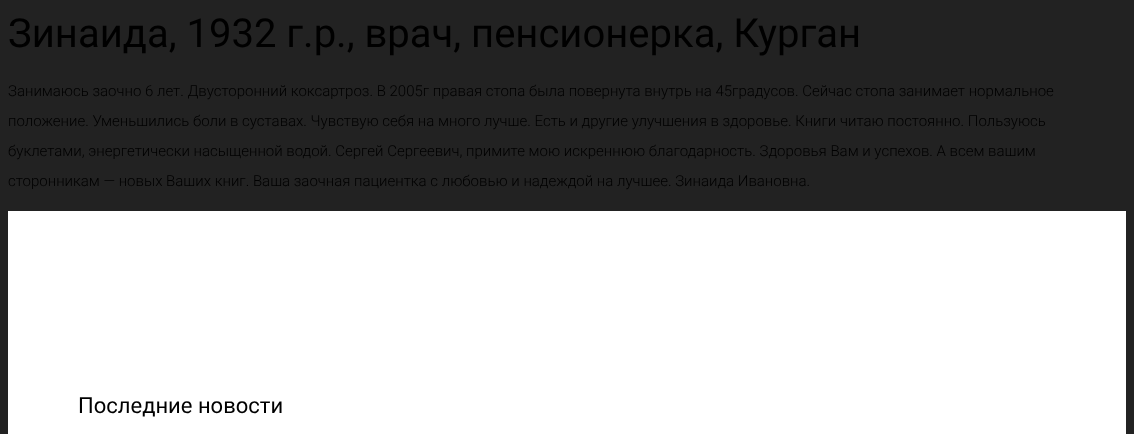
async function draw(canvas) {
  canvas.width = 1134
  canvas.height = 434
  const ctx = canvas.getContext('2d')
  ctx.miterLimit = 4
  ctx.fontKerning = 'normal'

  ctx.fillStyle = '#222'
  ctx.fillRect(0, 0, 1134, 434)
  ctx.font = '40px Roboto'
  ctx.fillStyle = '#000'
  ctx.fillText('Зинаида, 1932 г.р., врач, пенсионерка, Курган', 8, 47)
  ctx.font = '300 15px Roboto'
  ctx.fillText('Занимаюсь заочно 6 лет. Двусторонний коксартроз. В 2005г правая стопа была повернута внутрь на 45градусов. Сейчас стопа занимает нормальное', 8, 96)
  ctx.fillText('положение. Уменьшились боли в суставах. Чувствую себя на много лучше. Есть и другие улучшения в здоровье. Книги читаю постоянно. Пользуюсь', 8, 126)
  ctx.fillText('буклетами, энергетически насыщенной водой. Сергей Сергеевич, примите мою искреннюю благодарность. Здоровья Вам и успехов. А всем вашим', 8, 156)
  ctx.fillText('сторонникам — новых Ваших книг. Ваша заочная пациентка с любовью и надеждой на лучшее. Зинаида Ивановна.', 8, 186)
  ctx.fillStyle = '#fff'
  ctx.fillRect(8, 211, 1118, 223)
  ctx.font = '22px Roboto'
  ctx.fillStyle = '#000'
  ctx.fillText('Последние новости', 78, 413)
}

draw(document.querySelector('canvas'))
